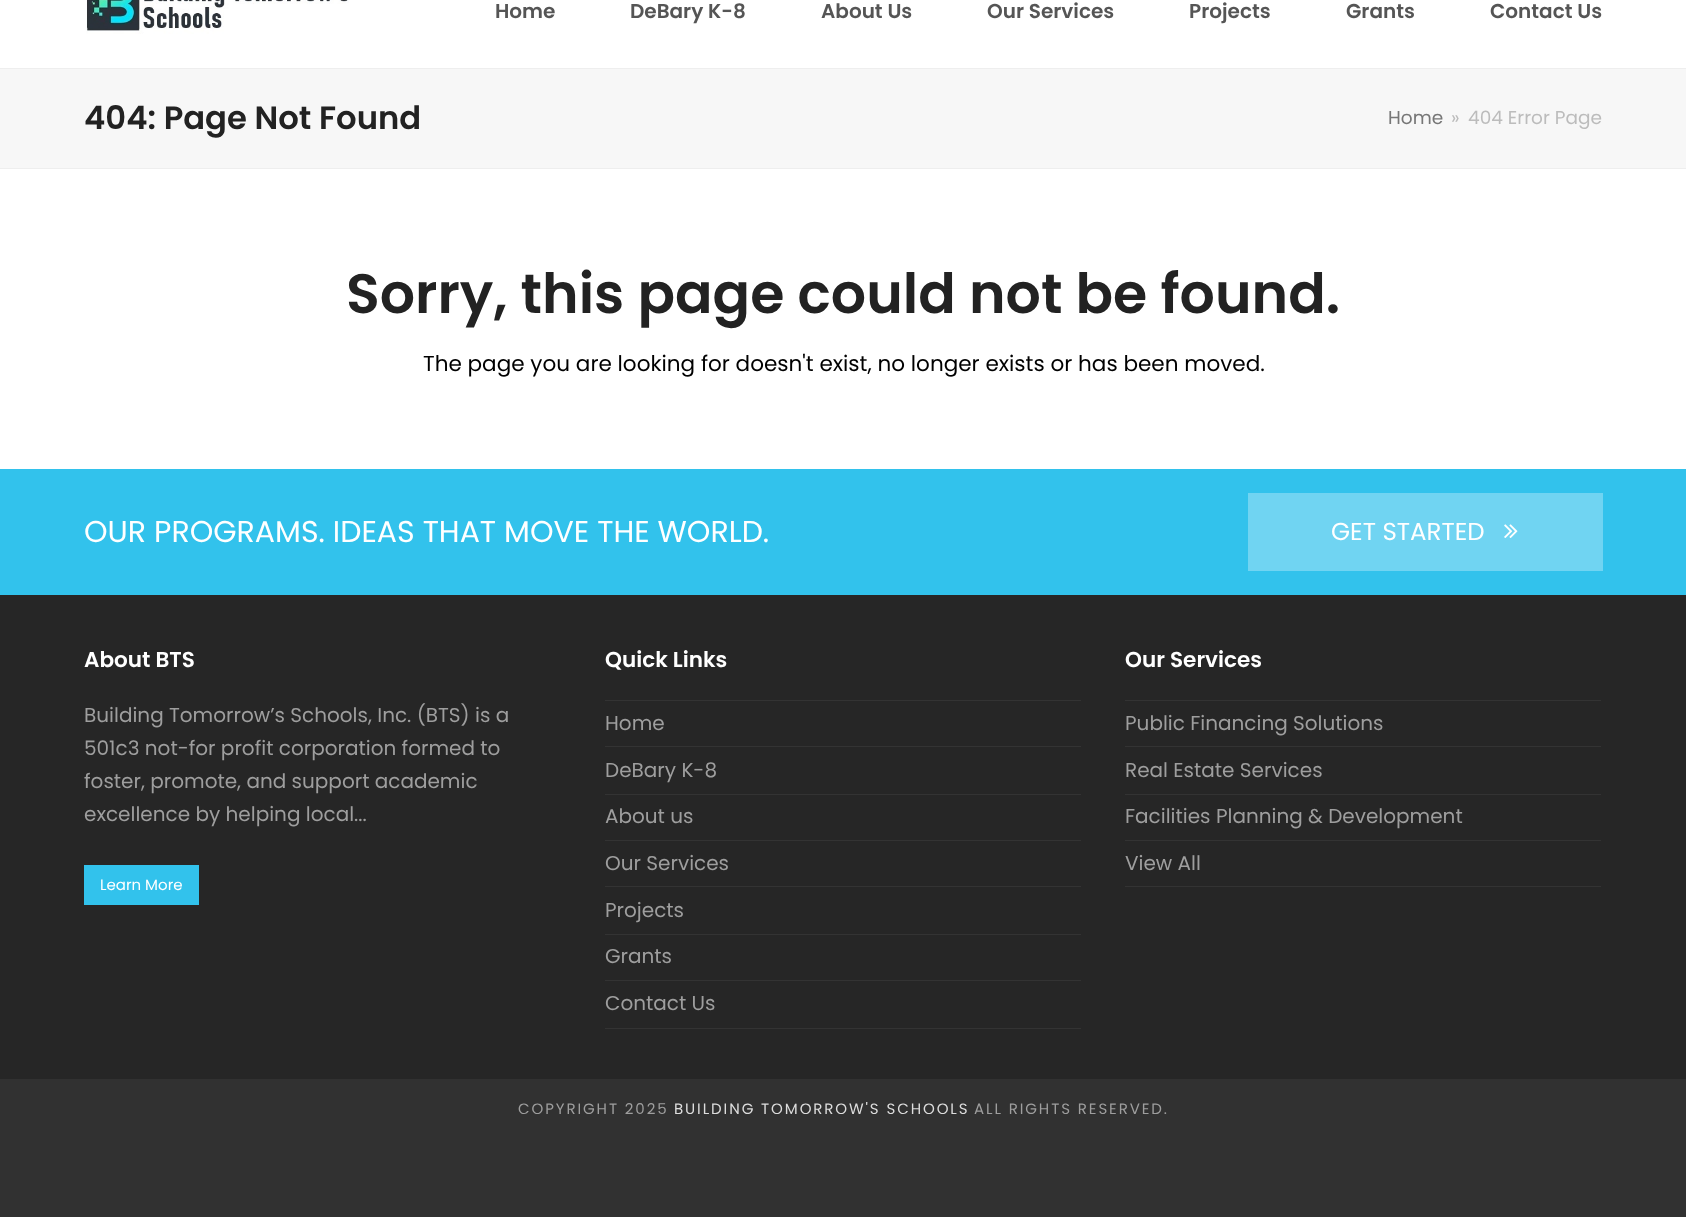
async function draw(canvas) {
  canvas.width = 1686
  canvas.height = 1217
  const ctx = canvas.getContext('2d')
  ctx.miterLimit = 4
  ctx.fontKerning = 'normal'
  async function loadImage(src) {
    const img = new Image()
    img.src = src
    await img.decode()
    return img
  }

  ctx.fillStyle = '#fff'
  ctx.fillRect(0, 0, 1686, 1217)
  ctx.drawImage(await loadImage('image0.png'), 86, 0, 263, 34)
  ctx.font = '600 20px Poppins'
  ctx.fillStyle = '#555'
  ctx.fillText('Home', 495, 18)
  ctx.fillText('DeBary K-8', 630, 18)
  ctx.fillText('About Us', 821, 18)
  ctx.fillText('Our Services', 987, 18)
  ctx.fillText('Projects', 1189, 18)
  ctx.fillText('Grants', 1346, 18)
  ctx.fillText('Contact Us', 1490, 18)
  ctx.fillStyle = '#f7f7f7'
  ctx.fillRect(0, 69, 1686, 99)
  ctx.fillStyle = '#eee'
  ctx.fillRect(0, 68, 1686, 1)
  ctx.fillRect(0, 168, 1686, 1)
  ctx.font = '600 32.25px Poppins'
  ctx.fillStyle = '#222'
  ctx.fillText('404: Page Not Found', 84, 129)
  ctx.font = '18.5px Poppins'
  ctx.fillStyle = '#777'
  ctx.fillText('Home', 1388, 124)
  ctx.fillStyle = '#bcbcbc'
  ctx.fillText('»', 1451, 124)
  ctx.fillText('404 Error Page', 1468, 124)
  ctx.font = '600 55.4px Poppins'
  ctx.fillStyle = '#222'
  ctx.fillText('Sorry, this page could not be found.', 346, 313)
  ctx.font = '21.55px Poppins'
  ctx.fillStyle = '#000'
  ctx.fillText('The page you are looking for doesn\'t exist, no longer exists or has been moved.', 423, 371)
  ctx.fillStyle = '#32c2ec'
  ctx.fillRect(0, 469, 1686, 126)
  ctx.font = '30px Poppins'
  ctx.fillStyle = '#fff'
  ctx.fillText('OUR PROGRAMS. IDEAS THAT MOVE THE WORLD.', 84, 542)
  ctx.fillStyle = '#70d4f2'
  ctx.fillRect(1248, 493, 355, 78)
  ctx.font = '24.5px Poppins'
  ctx.fillStyle = '#fff'
  ctx.fillText('GET STARTED', 1331, 540)
  ctx.drawImage(await loadImage('image1.png'), 1504, 524, 14, 14)
  ctx.fillStyle = '#262626'
  ctx.fillRect(0, 595, 1686, 484)
  ctx.font = '600 21.55px Poppins'
  ctx.fillStyle = '#fff'
  ctx.fillText('About BTS', 84, 667)
  ctx.font = '20px Poppins'
  ctx.fillStyle = '#9e9e9e'
  ctx.fillText('Building Tomorrow’s Schools, Inc. (BTS) is a', 84, 722)
  ctx.fillText('501c3 not-for profit corporation formed to', 84, 755)
  ctx.fillText('foster, promote, and support academic', 84, 788)
  ctx.fillText('excellence by helping local...', 84, 821)
  ctx.fillStyle = '#32c2ec'
  ctx.fillRect(84, 865, 115, 40)
  ctx.font = '15px Poppins'
  ctx.fillStyle = '#fff'
  ctx.fillText('Learn More', 100, 890)
  ctx.font = '600 21.55px Poppins'
  ctx.fillText('Quick Links', 605, 667)
  ctx.fillStyle = '#333'
  ctx.fillRect(605, 700, 476, 1)
  ctx.fillRect(605, 746, 476, 1)
  ctx.font = '20px Poppins'
  ctx.fillStyle = '#9e9e9e'
  ctx.fillText('Home', 605, 730)
  ctx.fillStyle = '#333'
  ctx.fillRect(605, 794, 476, 1)
  ctx.fillStyle = '#9e9e9e'
  ctx.fillText('DeBary K-8', 605, 777)
  ctx.fillStyle = '#333'
  ctx.fillRect(605, 840, 476, 1)
  ctx.fillStyle = '#9e9e9e'
  ctx.fillText('About us', 605, 823)
  ctx.fillStyle = '#333'
  ctx.fillRect(605, 886, 476, 1)
  ctx.fillStyle = '#9e9e9e'
  ctx.fillText('Our Services', 605, 870)
  ctx.fillStyle = '#333'
  ctx.fillRect(605, 934, 476, 1)
  ctx.fillStyle = '#9e9e9e'
  ctx.fillText('Projects', 605, 917)
  ctx.fillStyle = '#333'
  ctx.fillRect(605, 980, 476, 1)
  ctx.fillStyle = '#9e9e9e'
  ctx.fillText('Grants', 605, 963)
  ctx.fillStyle = '#333'
  ctx.fillRect(605, 1028, 476, 1)
  ctx.fillStyle = '#9e9e9e'
  ctx.fillText('Contact Us', 605, 1010)
  ctx.font = '600 21.55px Poppins'
  ctx.fillStyle = '#fff'
  ctx.fillText('Our Services', 1125, 667)
  ctx.fillStyle = '#333'
  ctx.fillRect(1125, 700, 476, 1)
  ctx.fillRect(1125, 746, 476, 1)
  ctx.font = '20px Poppins'
  ctx.fillStyle = '#9e9e9e'
  ctx.fillText('Public Financing Solutions', 1125, 730)
  ctx.fillStyle = '#333'
  ctx.fillRect(1125, 794, 476, 1)
  ctx.fillStyle = '#9e9e9e'
  ctx.fillText('Real Estate Services', 1125, 777)
  ctx.fillStyle = '#333'
  ctx.fillRect(1125, 840, 476, 1)
  ctx.fillStyle = '#9e9e9e'
  ctx.fillText('Facilities Planning & Development', 1125, 823)
  ctx.fillStyle = '#333'
  ctx.fillRect(1125, 886, 476, 1)
  ctx.fillStyle = '#9e9e9e'
  ctx.fillText('View All', 1125, 870)
  ctx.fillStyle = '#313131'
  ctx.fillRect(0, 1079, 1686, 138)
  ctx.letterSpacing = '1.9px'
  ctx.font = '15px Poppins'
  ctx.fillStyle = '#9e9e9e'
  ctx.fillText('COPYRIGHT 2025', 518, 1114)
  ctx.fillStyle = '#ddd'
  ctx.fillText('BUILDING TOMORROW\'S SCHOOLS', 674, 1114)
  ctx.fillStyle = '#9e9e9e'
  ctx.fillText('ALL RIGHTS RESERVED.', 974, 1114)
}

draw(document.querySelector('canvas'))
